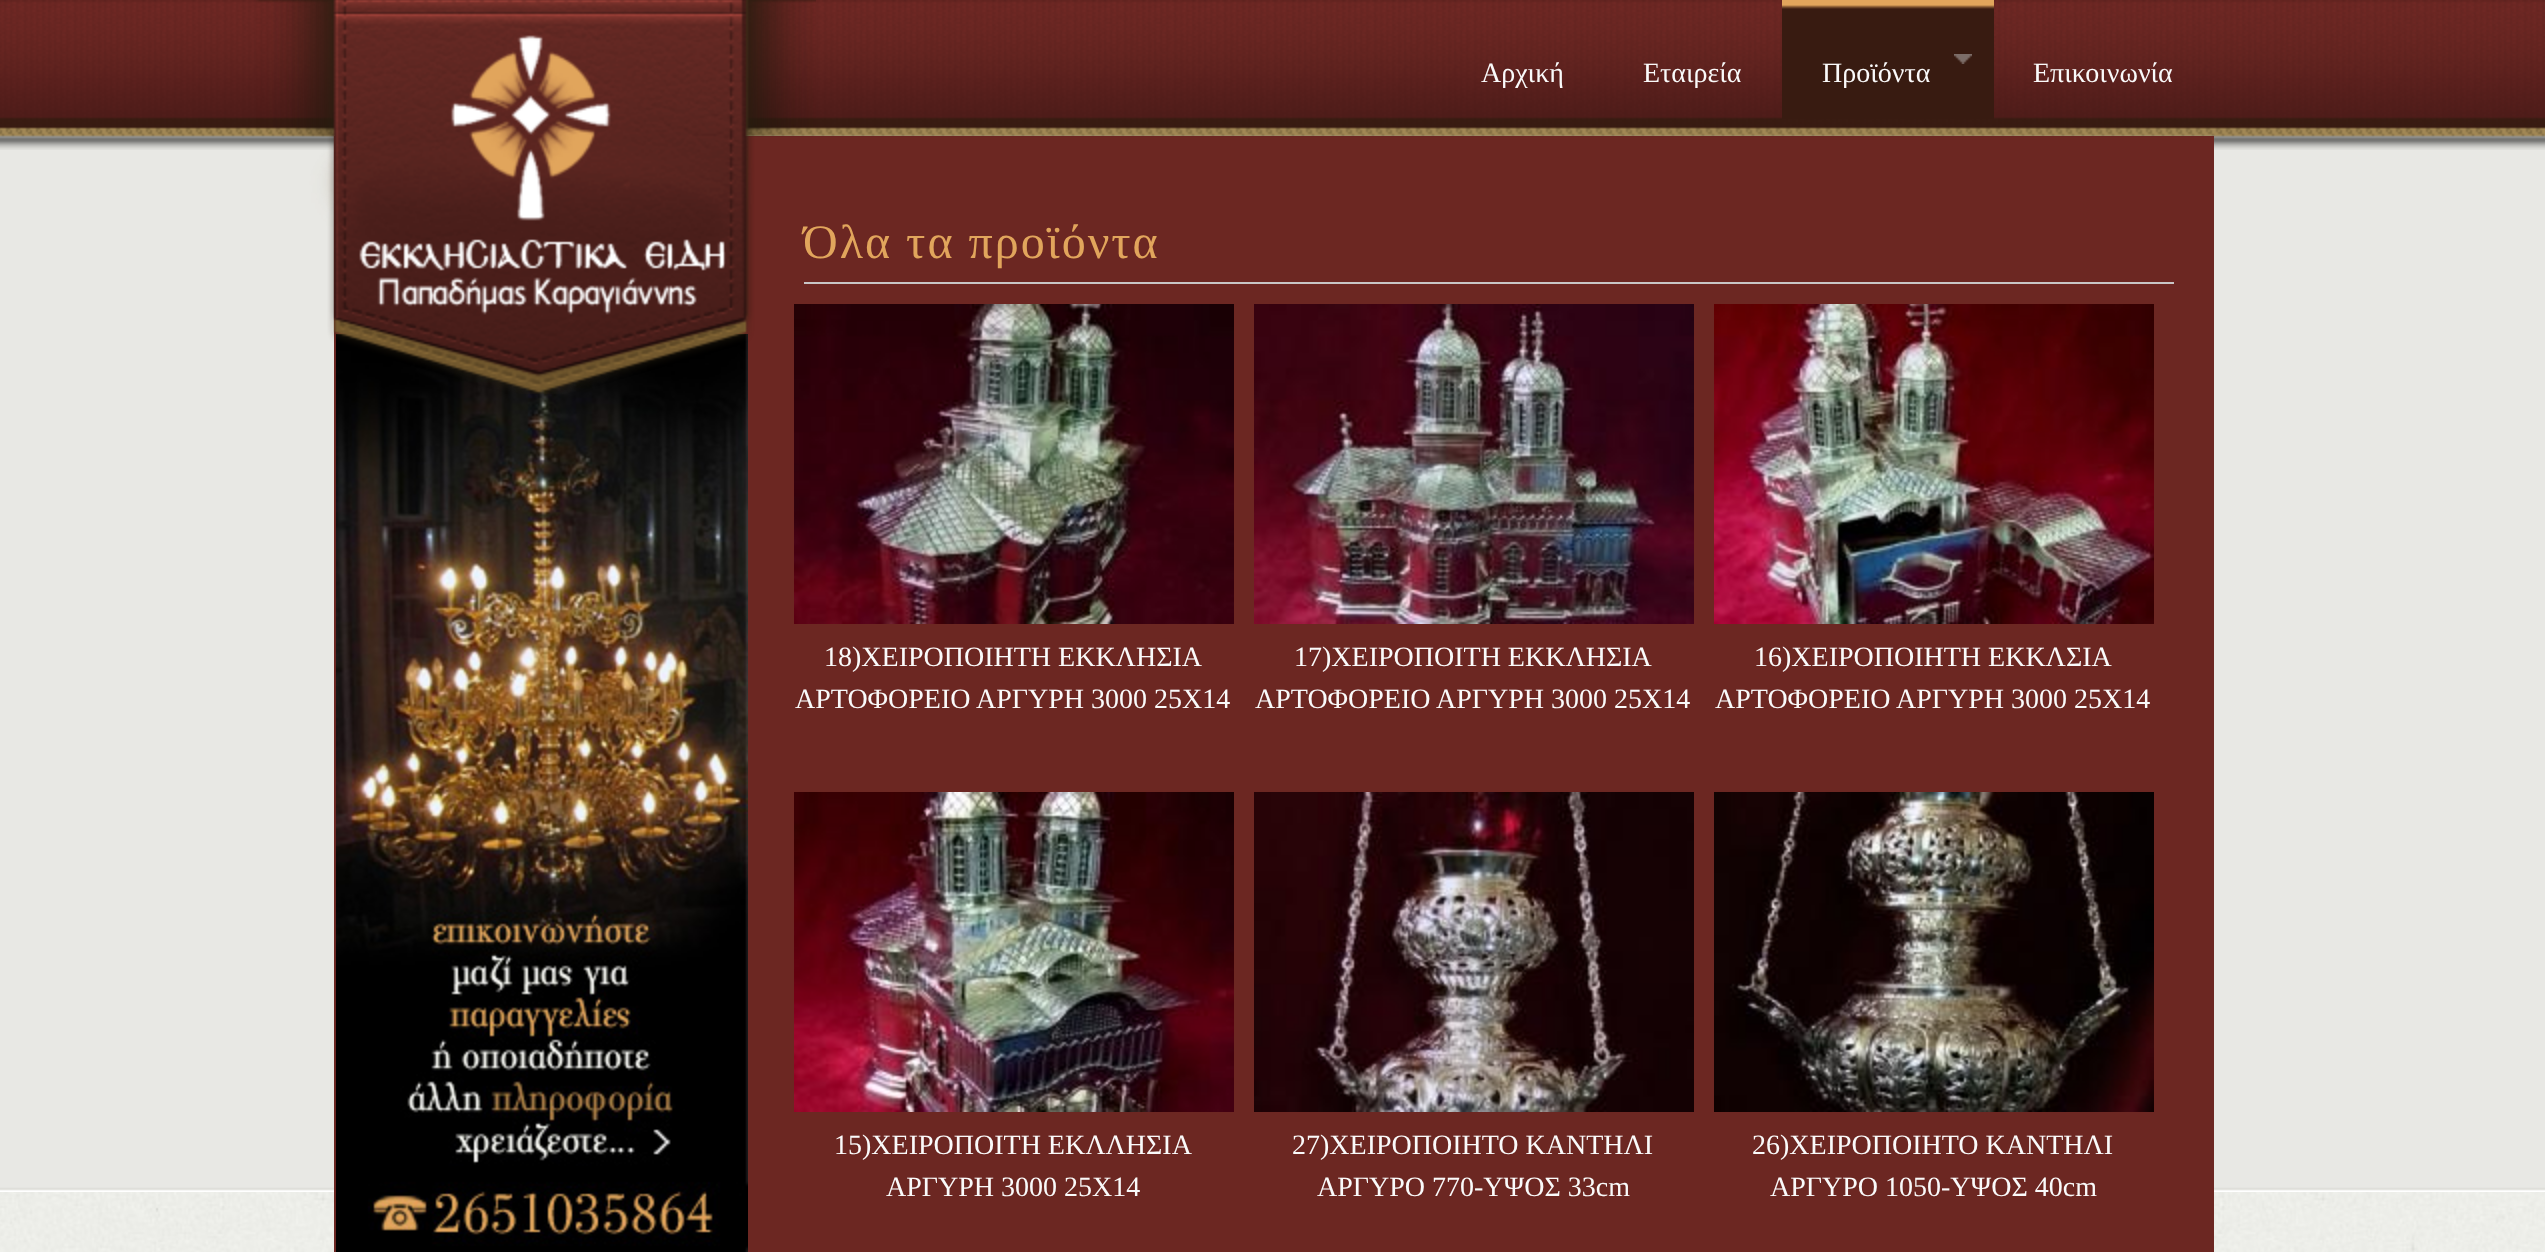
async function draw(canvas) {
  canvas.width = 2545
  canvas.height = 1252
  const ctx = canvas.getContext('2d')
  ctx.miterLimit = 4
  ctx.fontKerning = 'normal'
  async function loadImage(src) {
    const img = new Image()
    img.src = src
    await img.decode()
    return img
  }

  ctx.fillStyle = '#fff'
  ctx.fillRect(0, 0, 2545, 1252)
  ctx.drawImage(await loadImage('image0.png'), 0, 137, 2545, 1115)
  ctx.drawImage(await loadImage('image1.png'), 0, 0, 2545, 150)
  ctx.fillStyle = '#6c2722'
  ctx.fillRect(334, 136, 1880, 1116)
  ctx.fillStyle = '#c9c6c6'
  ctx.fillRect(804, 282, 1370, 2)
  ctx.letterSpacing = '2px'
  ctx.font = '48px Liberation Serif'
  ctx.fillStyle = '#e1a55c'
  ctx.fillText('Όλα τα προϊόντα', 803, 258)
  ctx.drawImage(await loadImage('image6.png'), 336, 334, 412, 918)
  ctx.drawImage(await loadImage('image7.png'), 794, 304, 440, 320)
  ctx.drawImage(await loadImage('image2.png'), 256, 0, 560, 394)
  ctx.drawImage(await loadImage('image3.png'), 359, 35, 367, 280)
  ctx.letterSpacing = '0px'
  ctx.font = '28px Liberation Serif'
  ctx.fillStyle = '#fafafa'
  ctx.fillText('Αρχική', 1481, 82)
  ctx.fillText('Εταιρεία', 1643, 82)
  ctx.drawImage(await loadImage('image4.png'), 1782, 0, 212, 119)
  ctx.drawImage(await loadImage('image5.png'), 1954, 54, 18, 10)
  ctx.fillText('Προϊόντα', 1822, 82)
  ctx.fillText('Επικοινωνία', 2033, 82)
  ctx.fillText('18)ΧΕΙΡΟΠΟΙΗΤΗ ΕΚΚΛΗΣΙΑ', 824, 666)
  ctx.fillText('ΑΡΤΟΦΟΡΕΙΟ ΑΡΓΥΡΗ 3000 25Χ14', 795, 708)
  ctx.drawImage(await loadImage('image8.png'), 1254, 304, 440, 320)
  ctx.fillText('17)ΧΕΙΡΟΠΟΙΤΗ ΕΚΚΛΗΣΙΑ', 1294, 666)
  ctx.fillText('ΑΡΤΟΦΟΡΕΙΟ ΑΡΓΥΡΗ 3000 25Χ14', 1255, 708)
  ctx.drawImage(await loadImage('image9.png'), 1714, 304, 440, 320)
  ctx.fillText('16)ΧΕΙΡΟΠΟΙΗΤΗ ΕΚΚΛΣΙΑ', 1754, 666)
  ctx.fillText('ΑΡΤΟΦΟΡΕΙΟ ΑΡΓΥΡΗ 3000 25Χ14', 1715, 708)
  ctx.drawImage(await loadImage('image10.png'), 794, 792, 440, 320)
  ctx.fillText('15)ΧΕΙΡΟΠΟΙΤΗ ΕΚΛΛΗΣΙΑ', 834, 1154)
  ctx.fillText('ΑΡΓΥΡΗ 3000 25Χ14', 886, 1196)
  ctx.drawImage(await loadImage('image11.png'), 1254, 792, 440, 320)
  ctx.fillText('27)ΧΕΙΡΟΠΟΙΗΤΟ ΚΑΝΤΗΛΙ', 1292, 1154)
  ctx.fillText('ΑΡΓΥΡΟ 770-ΥΨΟΣ 33cm', 1317, 1196)
  ctx.drawImage(await loadImage('image12.png'), 1714, 792, 440, 320)
  ctx.fillText('26)ΧΕΙΡΟΠΟΙΗΤΟ ΚΑΝΤΗΛΙ', 1752, 1154)
  ctx.fillText('ΑΡΓΥΡΟ 1050-ΥΨΟΣ 40cm', 1770, 1196)
}

draw(document.querySelector('canvas'))
